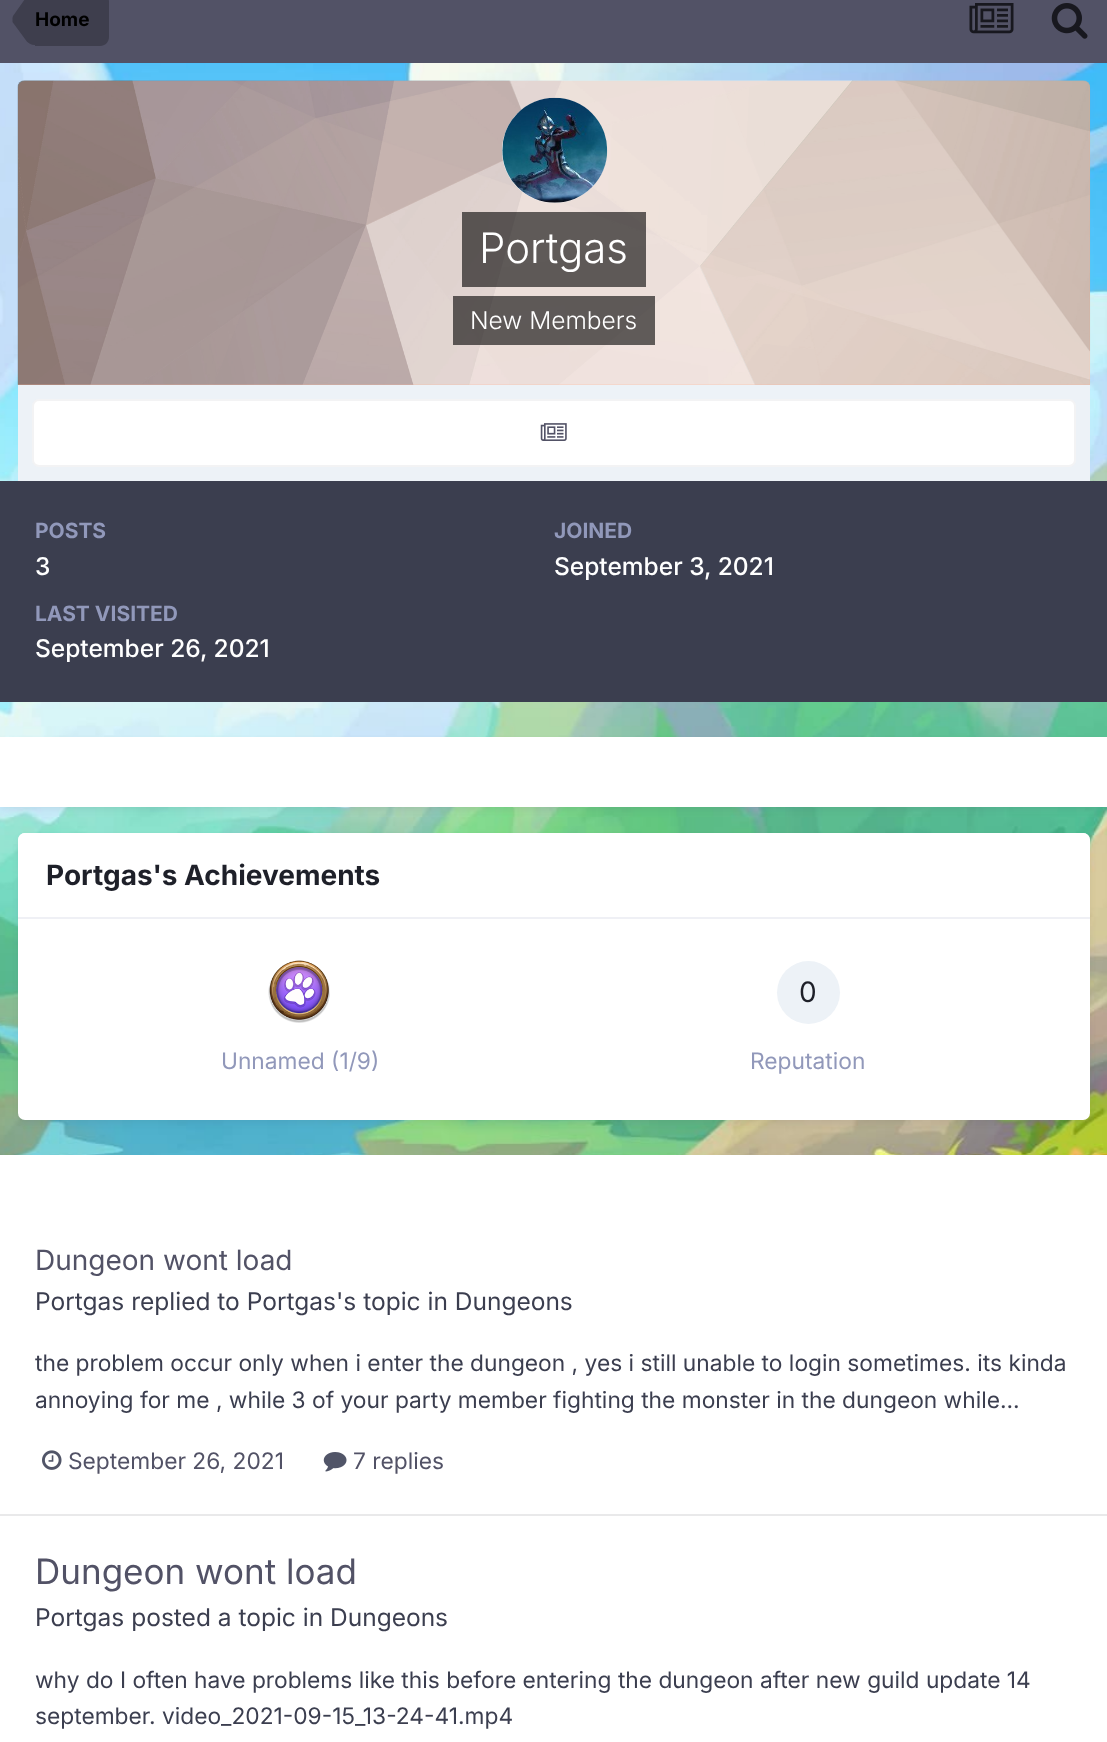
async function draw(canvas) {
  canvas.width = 1107
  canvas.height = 1742
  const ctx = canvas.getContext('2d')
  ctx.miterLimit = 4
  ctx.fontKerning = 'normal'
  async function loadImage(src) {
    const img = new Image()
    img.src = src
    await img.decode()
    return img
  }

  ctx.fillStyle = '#fff'
  ctx.fillRect(0, 0, 1107, 1742)
  ctx.drawImage(await loadImage('image0.png'), 0, 63, 1107, 1092)
  ctx.fillStyle = '#525266'
  ctx.fillRect(0, 0, 1107, 63)
  ctx.fillStyle = '#3e3e4d'
  ctx.beginPath()
  ctx.moveTo(35, -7)
  ctx.lineTo(100, -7)
  ctx.bezierCurveTo(105, -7, 109, -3, 109, 2)
  ctx.lineTo(109, 37)
  ctx.bezierCurveTo(109, 42, 105, 46, 100, 46)
  ctx.lineTo(35, 46)
  ctx.closePath()
  ctx.fill()
  ctx.beginPath()
  ctx.moveTo(12.5, 22)
  ctx.lineTo(12.5, 19)
  ctx.lineTo(35, 19)
  ctx.lineTo(35, 45)
  ctx.bezierCurveTo(31, 45, 27.5, 43, 25, 39)
  ctx.closePath()
  ctx.moveTo(35, -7)
  ctx.lineTo(35, 19)
  ctx.lineTo(12.5, 19)
  ctx.bezierCurveTo(12.5, 18, 12.5, 17, 13, 16)
  ctx.lineTo(25, -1)
  ctx.bezierCurveTo(27.5, -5, 31, -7, 35, -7)
  ctx.closePath()
  ctx.fill()
  ctx.font = 'bold 19px Inter'
  ctx.fillStyle = '#000'
  ctx.fillText('Home', 35, 26)
  ctx.drawImage(await loadImage('image1.png'), 969, 3, 45, 31)
  ctx.drawImage(await loadImage('image2.png'), 1051, 3, 37, 36)
  ctx.fillStyle = '#ffb499'
  ctx.beginPath()
  ctx.roundRect(18, 81, 1072, 304, [7, 7, 0, 0])
  ctx.fill()
  ctx.drawImage(await loadImage('image3.png'), 17, 80, 1074, 305)
  ctx.fillStyle = '#fff'
  ctx.beginPath()
  ctx.arc(554.5, 150.5, 52.5, 0, 2 * Math.PI)
  ctx.fill()
  ctx.drawImage(await loadImage('image4.png'), 502, 97, 106, 106)
  ctx.fillStyle = '#00000099'
  ctx.fillRect(462, 212, 184, 75)
  ctx.font = '300 42px Inter'
  ctx.fillStyle = '#fff'
  ctx.fillText('Portgas', 479, 263)
  ctx.fillStyle = '#00000099'
  ctx.fillRect(453, 296, 202, 49)
  ctx.font = '300 24.5px Inter'
  ctx.fillStyle = '#fff'
  ctx.fillText('New Members', 470, 329)
  ctx.fillStyle = '#edf2f7'
  ctx.fillRect(18, 385, 1072, 96)
  ctx.fillStyle = '#fff'
  ctx.beginPath()
  ctx.roundRect(32, 399, 1044, 68, 7)
  ctx.fill()
  ctx.beginPath()
  ctx.roundRect(33, 400, 1042, 66, 6)
  ctx.strokeStyle = '#52526612'
  ctx.lineWidth = 2
  ctx.stroke()
  ctx.drawImage(await loadImage('image5.png'), 540, 423, 27, 18)
  ctx.fillStyle = '#3b3e4f'
  ctx.fillRect(0, 481, 1107, 221)
  ctx.font = 'bold 21px Inter'
  ctx.fillStyle = '#9198ba'
  ctx.fillText('POSTS', 35, 538)
  ctx.font = '500 24.5px Inter'
  ctx.fillStyle = '#fff'
  ctx.fillText('3', 35, 575)
  ctx.font = 'bold 21px Inter'
  ctx.fillStyle = '#9198ba'
  ctx.fillText('JOINED', 554, 538)
  ctx.font = '500 24.5px Inter'
  ctx.fillStyle = '#fff'
  ctx.fillText('September 3, 2021', 554, 575)
  ctx.font = 'bold 21px Inter'
  ctx.fillStyle = '#9198ba'
  ctx.fillText('LAST VISITED', 35, 621)
  ctx.font = '500 24.5px Inter'
  ctx.fillStyle = '#fff'
  ctx.fillText('September 26, 2021', 35, 657)
  ctx.fillStyle = '#3b3e4f1a'
  ctx.filter = 'blur(3.5px)'
  ctx.beginPath()
  ctx.rect(2, 742, 1104, 67)
  ctx.fill()
  ctx.filter = 'none'
  ctx.fillStyle = '#fff'
  ctx.fillRect(0, 737, 1107, 70)
  ctx.fillStyle = '#3b3e4f1a'
  ctx.filter = 'blur(3.5px)'
  ctx.beginPath()
  ctx.roundRect(19, 838, 1070, 284, 5)
  ctx.fill()
  ctx.filter = 'none'
  ctx.fillStyle = '#fff'
  ctx.beginPath()
  ctx.roundRect(18, 833, 1072, 287, 7)
  ctx.fill()
  ctx.beginPath()
  ctx.roundRect(18, 833, 1072, 86, [7, 7, 0, 0])
  ctx.fill()
  ctx.fillStyle = '#eff0f5'
  ctx.fillRect(18, 917, 1072, 2)
  ctx.font = 'bold 28px Inter'
  ctx.fillStyle = '#1e2029'
  ctx.fillText('Portgas\'s Achievements', 46, 885)
  ctx.drawImage(await loadImage('image6.png'), 268, 960, 62, 63)
  ctx.font = '22.75px Inter'
  ctx.fillStyle = '#9198ba'
  ctx.fillText('Unnamed (1/9)', 221, 1069)
  ctx.fillStyle = '#edf2f7'
  ctx.beginPath()
  ctx.arc(808.5, 992.5, 31.5, 0, 2 * Math.PI)
  ctx.fill()
  ctx.font = '28px Inter'
  ctx.fillStyle = '#1e2029'
  ctx.fillText('0', 799, 1002)
  ctx.font = '22.75px Inter'
  ctx.fillStyle = '#9198ba'
  ctx.fillText('Reputation', 750, 1069)
  ctx.fillStyle = '#e9e9ea'
  ctx.fillRect(0, 1514, 1107, 2)
  ctx.font = '28px Inter'
  ctx.fillStyle = '#525266'
  ctx.fillText('Dungeon wont load', 35, 1270)
  ctx.font = '24.5px Inter'
  ctx.fillStyle = '#3b3e4f'
  ctx.fillText('Portgas replied to Portgas\'s topic in Dungeons', 35, 1310)
  ctx.font = '22.75px Inter'
  ctx.fillText('the problem occur only when i enter the dungeon , yes i still unable to login sometimes. its kinda', 35, 1371)
  ctx.fillText('annoying for me , while 3 of your party member fighting the monster in the dungeon while...', 35, 1408)
  ctx.drawImage(await loadImage('image7.png'), 42, 1450, 20, 20)
  ctx.fillStyle = '#525266'
  ctx.fillText('September 26, 2021', 68, 1469)
  ctx.drawImage(await loadImage('image8.png'), 323, 1452, 24, 20)
  ctx.fillText('7 replies', 353, 1469)
  ctx.font = '35px Inter'
  ctx.fillText('Dungeon wont load', 35, 1584)
  ctx.font = '24.5px Inter'
  ctx.fillStyle = '#3b3e4f'
  ctx.fillText('Portgas posted a topic in Dungeons', 35, 1626)
  ctx.font = '22.75px Inter'
  ctx.fillText('why do I often have problems like this before entering the dungeon after new guild update 14', 35, 1688)
  ctx.fillText('september. video_2021-09-15_13-24-41.mp4', 35, 1724)
}

draw(document.querySelector('canvas'))
